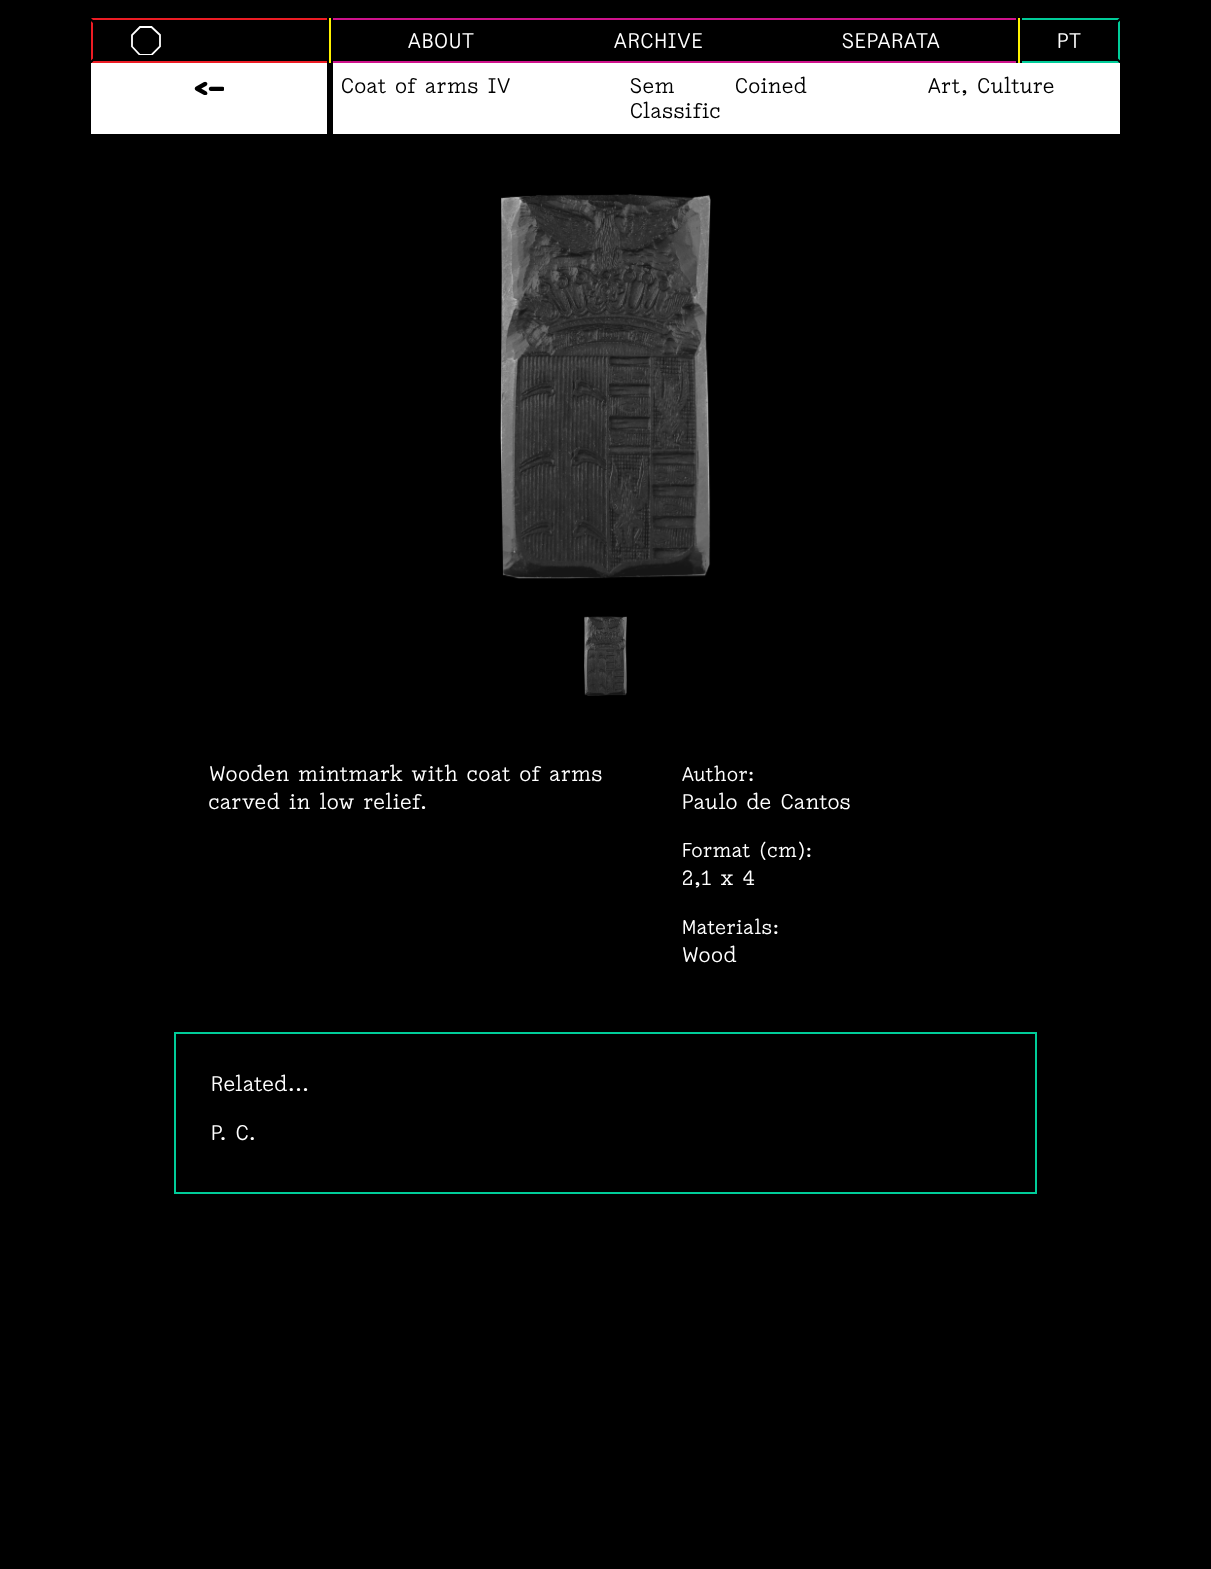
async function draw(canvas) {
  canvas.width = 1211
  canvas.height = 1569
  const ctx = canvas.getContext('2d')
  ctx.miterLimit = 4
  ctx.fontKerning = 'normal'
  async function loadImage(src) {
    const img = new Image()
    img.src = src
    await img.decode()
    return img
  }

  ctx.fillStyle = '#000'
  ctx.fillRect(0, 0, 1211, 1569)
  ctx.fillStyle = '#ed1c24'
  ctx.fillRect(91, 18, 236, 2)
  ctx.fillRect(91, 61, 236, 2)
  ctx.fillRect(91, 18, 2, 45)
  ctx.fillStyle = '#000'
  ctx.beginPath()
  ctx.moveTo(88.5, 18.5)
  ctx.lineTo(90, 17)
  ctx.lineTo(97, 24)
  ctx.lineTo(95.5, 25.5)
  ctx.closePath()
  ctx.moveTo(95.5, 56)
  ctx.lineTo(97, 57.5)
  ctx.lineTo(90, 64.5)
  ctx.lineTo(88.5, 63)
  ctx.closePath()
  ctx.fill()
  ctx.save()
  ctx.beginPath()
  ctx.rect(131, 26, 30, 29)
  ctx.clip()
  ctx.beginPath()
  ctx.moveTo(151.5, 27)
  ctx.lineTo(140, 27)
  ctx.lineTo(132, 35)
  ctx.lineTo(132, 46.5)
  ctx.lineTo(140, 55)
  ctx.lineTo(151.5, 55)
  ctx.lineTo(160, 46.5)
  ctx.lineTo(160, 35)
  ctx.closePath()
  ctx.strokeStyle = '#fff'
  ctx.lineWidth = 1.8
  ctx.stroke()
  ctx.restore()
  ctx.fillStyle = '#cf128c'
  ctx.fillRect(333, 18, 683, 2)
  ctx.fillRect(333, 61, 683, 2)
  ctx.fillStyle = '#fff200'
  ctx.fillRect(329, 18, 2, 45)
  ctx.letterSpacing = '1.05px'
  ctx.font = '21.25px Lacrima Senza'
  ctx.fillStyle = '#fff'
  ctx.fillText('ABOUT', 408, 48)
  ctx.fillText('ARCHIVE', 614, 48)
  ctx.fillText('SEPARATA', 842, 48)
  ctx.fillStyle = '#fff200'
  ctx.fillRect(1018, 18, 2, 45)
  ctx.fillStyle = '#0c9'
  ctx.fillRect(1022, 18, 98, 2)
  ctx.fillRect(1118, 18, 2, 45)
  ctx.fillRect(1022, 61, 98, 2)
  ctx.fillStyle = '#fff'
  ctx.fillText('PT', 1057, 48)
  ctx.fillStyle = '#000'
  ctx.beginPath()
  ctx.moveTo(1120.5, 17)
  ctx.lineTo(1122, 18.5)
  ctx.lineTo(1115, 25.5)
  ctx.lineTo(1113.5, 24)
  ctx.closePath()
  ctx.moveTo(1113.5, 57)
  ctx.lineTo(1115, 55.5)
  ctx.lineTo(1122, 62.5)
  ctx.lineTo(1120.5, 64)
  ctx.closePath()
  ctx.fill()
  ctx.fillStyle = '#fff'
  ctx.fillRect(91, 63, 236, 71)
  ctx.drawImage(await loadImage('image0.png'), 194, 81, 30, 14)
  ctx.fillRect(333, 63, 787, 71)
  ctx.fillStyle = '#000'
  ctx.fillText('Coat of arms IV', 341, 93)
  ctx.fillText('Sem', 630, 93)
  ctx.fillText('Classific', 630, 118)
  ctx.fillText('Coined', 735, 93)
  ctx.fillText('Art, Culture', 928, 93)
  ctx.drawImage(await loadImage('image1.png'), 500, 194, 211, 385)
  ctx.drawImage(await loadImage('image2.png'), 584, 616, 43, 80)
  ctx.fillStyle = '#fff'
  ctx.fillText('Wooden mintmark with coat of arms', 209, 781)
  ctx.fillText('carved in low relief.', 209, 809)
  ctx.letterSpacing = '1px'
  ctx.font = '20px Lacrima Senza'
  ctx.fillText('Author:', 682, 781)
  ctx.letterSpacing = '1.05px'
  ctx.font = '21.25px Lacrima Senza'
  ctx.fillText('Paulo de Cantos', 682, 809)
  ctx.letterSpacing = '1px'
  ctx.font = '20px Lacrima Senza'
  ctx.fillText('Format (cm):', 682, 857)
  ctx.letterSpacing = '1.05px'
  ctx.font = '21.25px Lacrima Senza'
  ctx.fillText('2,1 x 4', 682, 885)
  ctx.letterSpacing = '1px'
  ctx.font = '20px Lacrima Senza'
  ctx.fillText('Materials:', 682, 934)
  ctx.letterSpacing = '1.05px'
  ctx.font = '21.25px Lacrima Senza'
  ctx.fillText('Wood', 682, 962)
  ctx.strokeStyle = '#0c9'
  ctx.lineWidth = 2
  ctx.strokeRect(175, 1033, 861, 160)
  ctx.fillText('Related...', 211, 1091)
  ctx.fillText('P. C.', 211, 1140)
}

draw(document.querySelector('canvas'))
